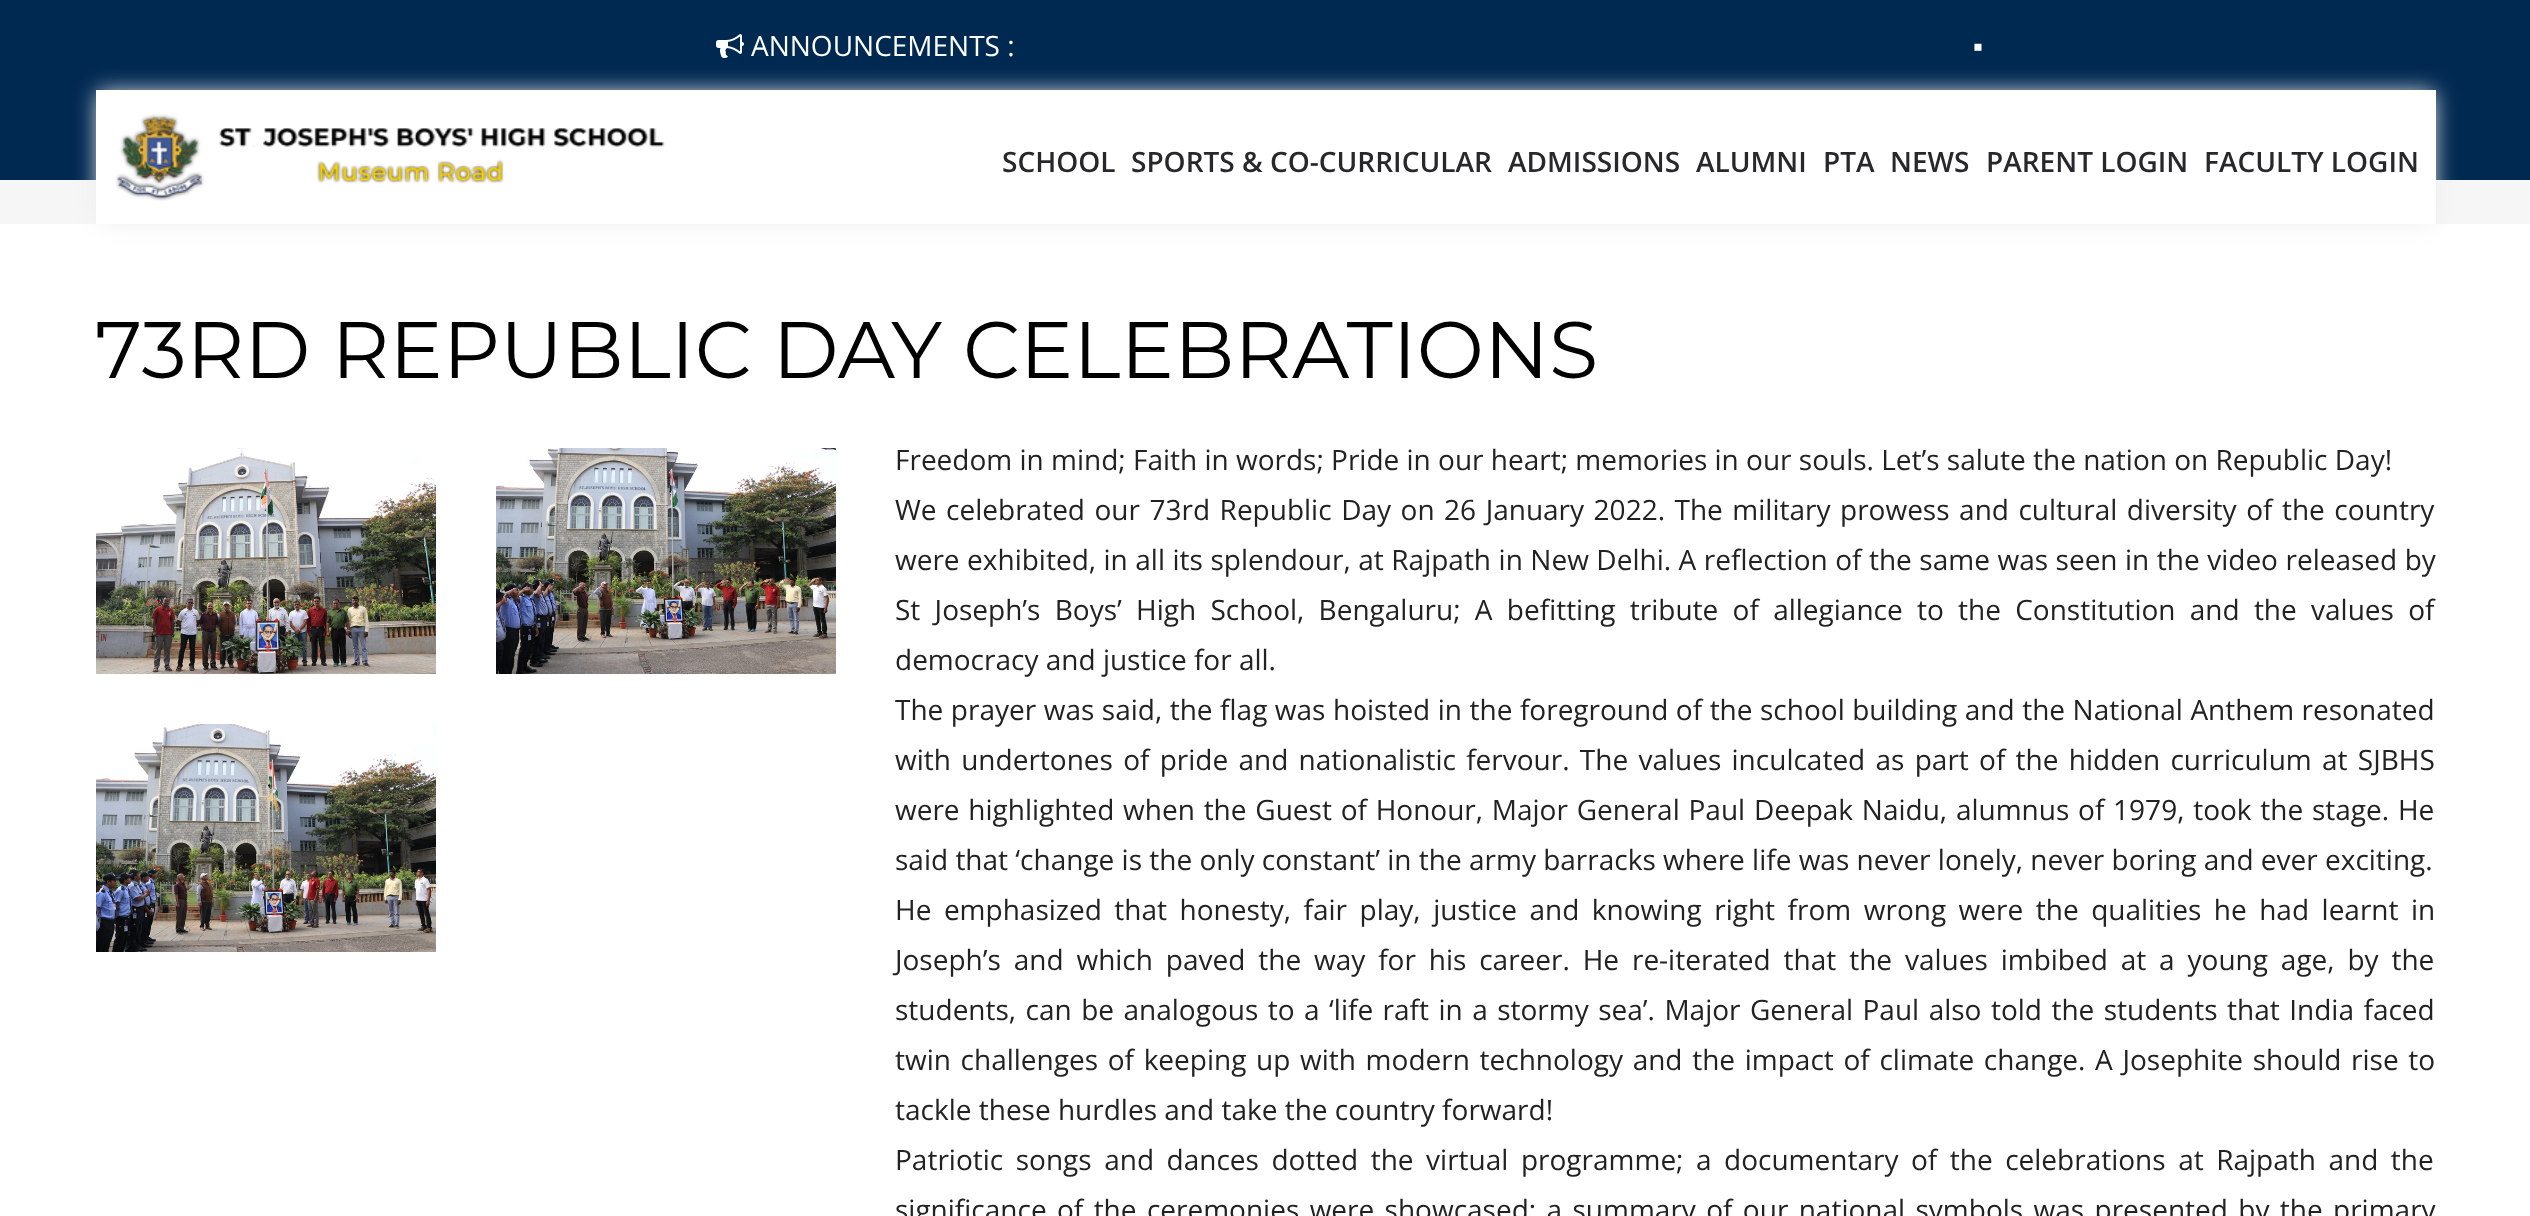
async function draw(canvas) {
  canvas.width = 2530
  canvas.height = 1216
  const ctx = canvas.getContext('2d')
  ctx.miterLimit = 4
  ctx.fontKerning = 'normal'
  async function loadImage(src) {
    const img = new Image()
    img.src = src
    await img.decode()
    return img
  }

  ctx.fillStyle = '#fff'
  ctx.fillRect(0, 0, 2530, 1216)
  ctx.fillStyle = '#002952'
  ctx.fillRect(0, 0, 2530, 180)
  ctx.drawImage(await loadImage('image0.png'), 716, 34, 28, 24)
  ctx.font = '28px Open Sans'
  ctx.fillStyle = '#fff'
  ctx.fillText('ANNOUNCEMENTS :', 751, 56)
  ctx.font = '28px Liberation Serif'
  ctx.fillText('▪', 1973, 56)
  ctx.fillStyle = '#f6f6f6'
  ctx.fillRect(0, 180, 2530, 44)
  ctx.fillStyle = '#ececec'
  ctx.filter = 'blur(11px)'
  ctx.beginPath()
  ctx.rect(98, 92, 2336, 130)
  ctx.fill()
  ctx.filter = 'none'
  ctx.fillStyle = '#fff'
  ctx.fillRect(96, 90, 2340, 134)
  ctx.drawImage(await loadImage('image1.png'), 115, 114, 550, 87)
  ctx.font = '600 28px Open Sans'
  ctx.fillStyle = '#27282c'
  ctx.fillText('SCHOOL', 1002, 172)
  ctx.fillText('SPORTS & CO-CURRICULAR', 1131, 172)
  ctx.fillText('ADMISSIONS', 1508, 172)
  ctx.fillText('ALUMNI', 1696, 172)
  ctx.fillText('PTA', 1823, 172)
  ctx.fillText('NEWS', 1890, 172)
  ctx.fillText('PARENT LOGIN', 1986, 172)
  ctx.fillText('FACULTY LOGIN', 2204, 172)
  ctx.font = '80px Montserrat'
  ctx.fillStyle = '#000'
  ctx.fillText('73RD REPUBLIC DAY CELEBRATIONS', 95, 378)
  ctx.drawImage(await loadImage('image2.png'), 96, 448, 340, 226)
  ctx.drawImage(await loadImage('image3.png'), 496, 448, 340, 226)
  ctx.drawImage(await loadImage('image4.png'), 96, 724, 340, 228)
  ctx.font = '28px Open Sans'
  ctx.fillStyle = '#222'
  ctx.fillText('Freedom in mind; Faith in words; Pride in our heart; memories in our souls. Let’s salute the nation on Republic Day!', 895, 470)
  ctx.wordSpacing = '2.25px'
  ctx.fillText('We celebrated our 73rd Republic Day on 26 January 2022. The military prowess and cultural diversity of the country', 895, 520)
  ctx.wordSpacing = '0.25px'
  ctx.fillText('were exhibited, in all its splendour, at Rajpath in New Delhi. A reflection of the same was seen in the video released by', 895, 570)
  ctx.wordSpacing = '7px'
  ctx.fillText('St Joseph’s Boys’ High School, Bengaluru; A befitting tribute of allegiance to the Constitution and the values of', 895, 620)
  ctx.wordSpacing = '0px'
  ctx.fillText('democracy and justice for all.', 895, 670)
  ctx.wordSpacing = '0.25px'
  ctx.fillText('The prayer was said, the flag was hoisted in the foreground of the school building and the National Anthem resonated', 895, 720)
  ctx.wordSpacing = '3px'
  ctx.fillText('with undertones of pride and nationalistic fervour. The values inculcated as part of the hidden curriculum at SJBHS', 895, 770)
  ctx.wordSpacing = '1.5px'
  ctx.fillText('were highlighted when the Guest of Honour, Major General Paul Deepak Naidu, alumnus of 1979, took the stage. He', 895, 820)
  ctx.wordSpacing = '0px'
  ctx.fillText('said that ‘change is the only constant’ in the army barracks where life was never lonely, never boring and ever exciting.', 895, 870)
  ctx.wordSpacing = '5.25px'
  ctx.fillText('He emphasized that honesty, fair play, justice and knowing right from wrong were the qualities he had learnt in', 895, 920)
  ctx.wordSpacing = '5.6px'
  ctx.fillText('Joseph’s and which paved the way for his career. He re-iterated that the values imbibed at a young age, by the', 895, 970)
  ctx.wordSpacing = '2.2px'
  ctx.fillText('students, can be analogous to a ‘life raft in a stormy sea’. Major General Paul also told the students that India faced', 895, 1020)
  ctx.wordSpacing = '2.4px'
  ctx.fillText('twin challenges of keeping up with modern technology and the impact of climate change. A Josephite should rise to', 895, 1070)
  ctx.wordSpacing = '0px'
  ctx.fillText('tackle these hurdles and take the country forward!', 895, 1120)
  ctx.wordSpacing = '5.25px'
  ctx.fillText('Patriotic songs and dances dotted the virtual programme; a documentary of the celebrations at Rajpath and the', 895, 1170)
  ctx.wordSpacing = '3.1px'
  ctx.fillText('significance of the ceremonies were showcased; a summary of our national symbols was presented by the primary', 895, 1220)
}

draw(document.querySelector('canvas'))
